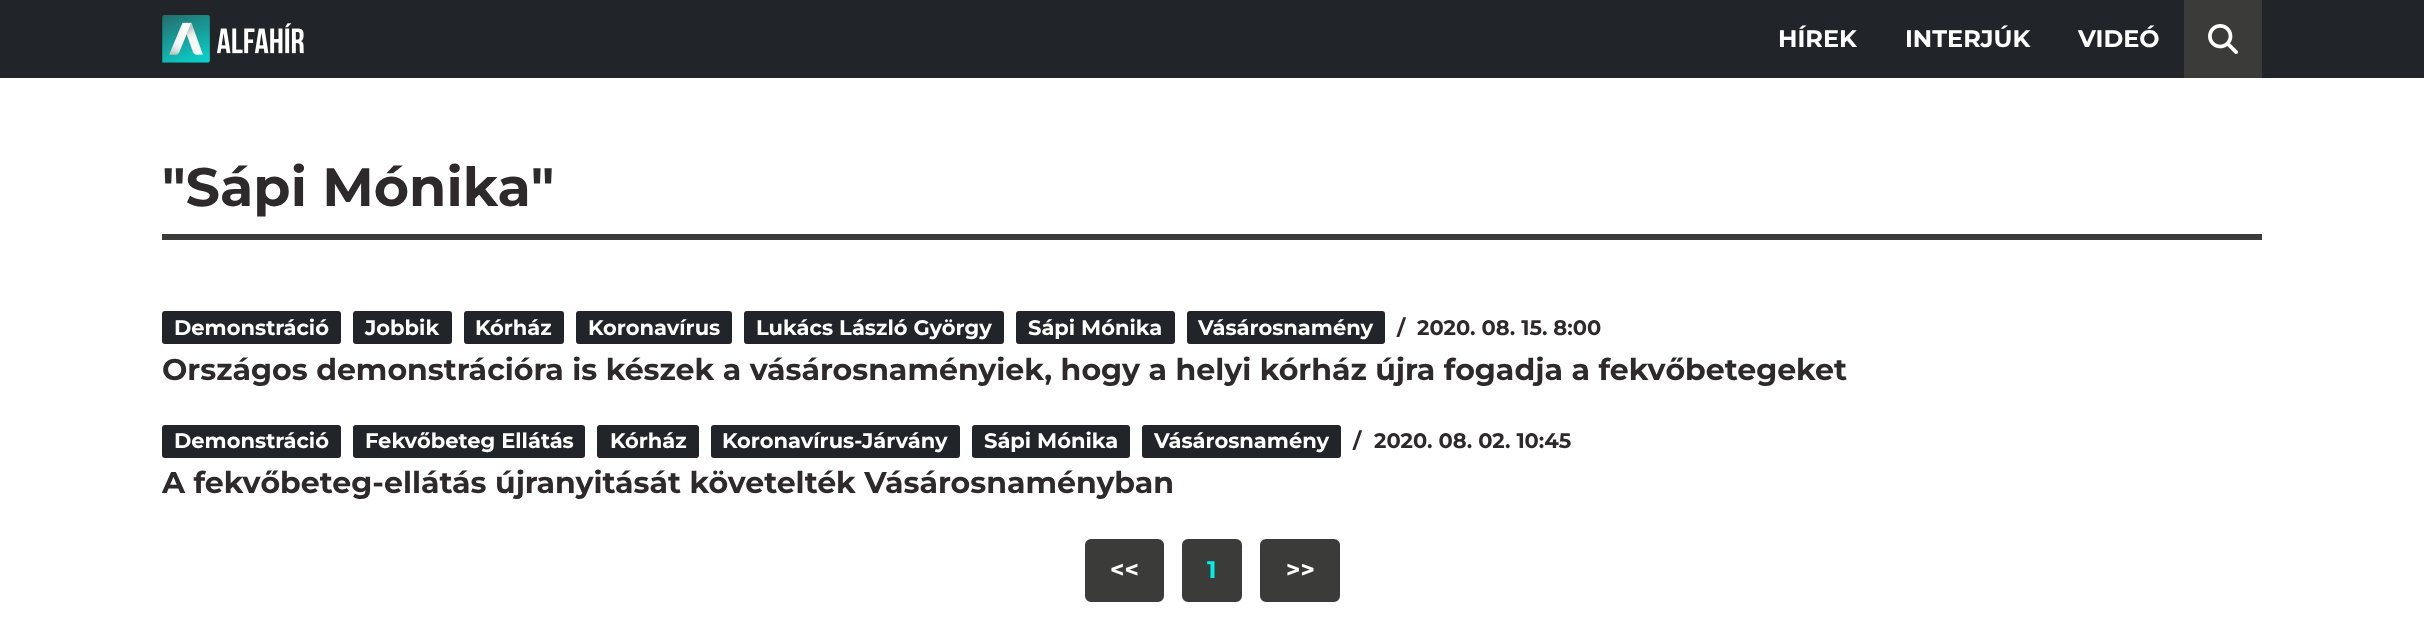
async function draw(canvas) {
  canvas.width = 2424
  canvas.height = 642
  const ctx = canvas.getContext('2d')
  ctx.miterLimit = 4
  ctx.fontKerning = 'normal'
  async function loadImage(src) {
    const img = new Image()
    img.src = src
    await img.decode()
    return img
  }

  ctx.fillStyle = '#fff'
  ctx.fillRect(0, 0, 2424, 642)
  ctx.fillStyle = '#212529'
  ctx.fillRect(0, 0, 2424, 78)
  ctx.drawImage(await loadImage('image0.png'), 162, 15, 142, 48)
  ctx.font = 'bold 24px Montserrat'
  ctx.fillStyle = '#fff'
  ctx.fillText('HÍREK', 1778, 47)
  ctx.fillText('INTERJÚK', 1905, 47)
  ctx.fillText('VIDEÓ', 2078, 47)
  ctx.fillStyle = '#3b3b3a'
  ctx.fillRect(2184, 0, 78, 78)
  ctx.drawImage(await loadImage('image1.png'), 2208, 24, 30, 30)
  ctx.fillRect(162, 234, 2100, 6)
  ctx.font = 'bold 54px Montserrat'
  ctx.fillStyle = '#2e292a'
  ctx.fillText('"Sápi Mónika"', 162, 206)
  ctx.fillStyle = '#212529'
  ctx.beginPath()
  ctx.roundRect(162, 311, 179, 33, 3)
  ctx.fill()
  ctx.font = 'bold 21px Montserrat'
  ctx.fillStyle = '#fff'
  ctx.fillText('Demonstráció', 174, 335)
  ctx.fillStyle = '#212529'
  ctx.beginPath()
  ctx.roundRect(353, 311, 99, 33, 3)
  ctx.fill()
  ctx.fillStyle = '#fff'
  ctx.fillText('Jobbik', 365, 335)
  ctx.fillStyle = '#212529'
  ctx.beginPath()
  ctx.roundRect(464, 311, 100, 33, 3)
  ctx.fill()
  ctx.fillStyle = '#fff'
  ctx.fillText('Kórház', 475, 335)
  ctx.fillStyle = '#212529'
  ctx.beginPath()
  ctx.roundRect(576, 311, 156, 33, 3)
  ctx.fill()
  ctx.fillStyle = '#fff'
  ctx.fillText('Koronavírus', 588, 335)
  ctx.fillStyle = '#212529'
  ctx.beginPath()
  ctx.roundRect(744, 311, 260, 33, 3)
  ctx.fill()
  ctx.fillStyle = '#fff'
  ctx.fillText('Lukács László György', 756, 335)
  ctx.fillStyle = '#212529'
  ctx.beginPath()
  ctx.roundRect(1016, 311, 159, 33, 3)
  ctx.fill()
  ctx.fillStyle = '#fff'
  ctx.fillText('Sápi Mónika', 1028, 335)
  ctx.fillStyle = '#212529'
  ctx.beginPath()
  ctx.roundRect(1187, 311, 198, 33, 3)
  ctx.fill()
  ctx.fillStyle = '#fff'
  ctx.fillText('Vásárosnamény', 1198, 335)
  ctx.fillStyle = '#2e292a'
  ctx.fillText('/', 1397, 335)
  ctx.fillText('2020. 08. 15. 8:00', 1417, 335)
  ctx.font = 'bold 30px Montserrat'
  ctx.fillText('Országos demonstrációra is készek a vásárosnaményiek, hogy a helyi kórház újra fogadja a fekvőbetegeket', 162, 380)
  ctx.fillStyle = '#212529'
  ctx.beginPath()
  ctx.roundRect(162, 425, 179, 33, 3)
  ctx.fill()
  ctx.font = 'bold 21px Montserrat'
  ctx.fillStyle = '#fff'
  ctx.fillText('Demonstráció', 174, 448)
  ctx.fillStyle = '#212529'
  ctx.beginPath()
  ctx.roundRect(353, 425, 232, 33, 3)
  ctx.fill()
  ctx.fillStyle = '#fff'
  ctx.fillText('Fekvőbeteg Ellátás', 365, 448)
  ctx.fillStyle = '#212529'
  ctx.beginPath()
  ctx.roundRect(597, 425, 102, 33, 3)
  ctx.fill()
  ctx.fillStyle = '#fff'
  ctx.fillText('Kórház', 610, 448)
  ctx.fillStyle = '#212529'
  ctx.beginPath()
  ctx.roundRect(711, 425, 249, 33, 3)
  ctx.fill()
  ctx.fillStyle = '#fff'
  ctx.fillText('Koronavírus-Járvány', 722, 448)
  ctx.fillStyle = '#212529'
  ctx.beginPath()
  ctx.roundRect(972, 425, 158, 33, 3)
  ctx.fill()
  ctx.fillStyle = '#fff'
  ctx.fillText('Sápi Mónika', 984, 448)
  ctx.fillStyle = '#212529'
  ctx.beginPath()
  ctx.roundRect(1142, 425, 199, 33, 3)
  ctx.fill()
  ctx.fillStyle = '#fff'
  ctx.fillText('Vásárosnamény', 1154, 448)
  ctx.fillStyle = '#2e292a'
  ctx.fillText('/', 1353, 448)
  ctx.fillText('2020. 08. 02. 10:45', 1374, 448)
  ctx.font = 'bold 30px Montserrat'
  ctx.fillText('A fekvőbeteg-ellátás újranyitását követelték Vásárosnaményban', 162, 493)
  ctx.fillStyle = '#3b3b3a'
  ctx.beginPath()
  ctx.roundRect(1086, 540, 77, 61, 5)
  ctx.fill()
  ctx.strokeStyle = '#3b3b3a'
  ctx.lineWidth = 2
  ctx.stroke()
  ctx.font = 'bold 24px Montserrat'
  ctx.fillStyle = '#fff'
  ctx.fillText('<<', 1110, 578)
  ctx.fillStyle = '#3b3b3a'
  ctx.beginPath()
  ctx.roundRect(1183, 540, 58, 61, 5)
  ctx.fill()
  ctx.stroke()
  ctx.fillStyle = '#00f0e8'
  ctx.fillText('1', 1207, 578)
  ctx.fillStyle = '#3b3b3a'
  ctx.beginPath()
  ctx.roundRect(1261, 540, 78, 61, 5)
  ctx.fill()
  ctx.stroke()
  ctx.fillStyle = '#fff'
  ctx.fillText('>>', 1286, 578)
}

draw(document.querySelector('canvas'))
